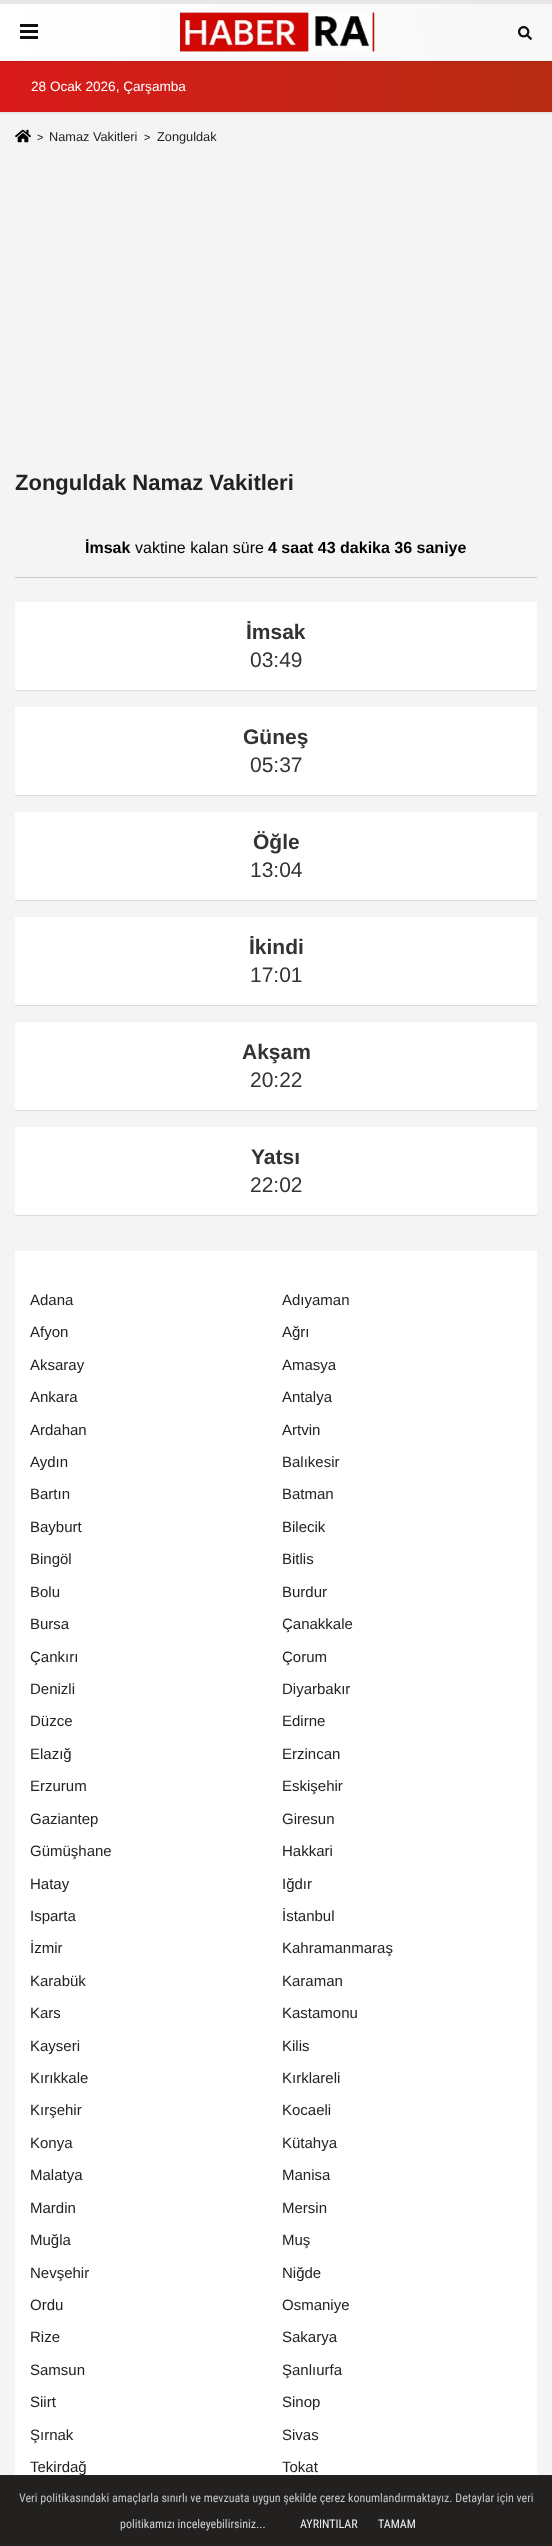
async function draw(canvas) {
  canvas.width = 552
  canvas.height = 2546
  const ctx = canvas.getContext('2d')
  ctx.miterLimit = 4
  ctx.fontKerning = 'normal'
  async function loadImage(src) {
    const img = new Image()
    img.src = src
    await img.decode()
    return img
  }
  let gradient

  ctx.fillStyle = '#f4f4f4'
  ctx.fillRect(0, 0, 552, 2546)
  ctx.fillStyle = '#e6e6e6'
  ctx.fillRect(0, 0, 552, 1)
  ctx.fillStyle = '#0000001a'
  ctx.filter = 'blur(1px)'
  ctx.beginPath()
  ctx.rect(0, 62, 552, 51)
  ctx.fill()
  ctx.filter = 'none'
  gradient = ctx.createLinearGradient(0, 87, 552, 86)
  gradient.addColorStop(0, '#d91a1a')
  gradient.addColorStop(1, '#b82d14')
  ctx.fillStyle = gradient
  ctx.fillRect(0, 61, 552, 51)
  ctx.fillStyle = '#0000001a'
  ctx.filter = 'blur(1px)'
  ctx.beginPath()
  ctx.rect(0, 2, 552, 60)
  ctx.fill()
  ctx.filter = 'none'
  gradient = ctx.createRadialGradient(552, 4, 0, 552, 4, 555)
  gradient.addColorStop(0, '#f7f7f7')
  gradient.addColorStop(1, '#fff')
  ctx.fillStyle = gradient
  ctx.fillRect(0, 4, 552, 56)
  ctx.fillStyle = '#ebe7e6'
  ctx.fillRect(0, 1, 552, 3)
  ctx.fillStyle = '#f5f5f5'
  ctx.fillRect(0, 60, 552, 1)
  ctx.fillStyle = '#0f0f0f'
  ctx.fillRect(20, 24, 18, 3)
  ctx.fillRect(20, 30, 18, 3)
  ctx.fillRect(20, 36, 18, 3)
  ctx.drawImage(await loadImage('image0.png'), 180, 12, 195, 40)
  ctx.drawImage(await loadImage('image1.png'), 518, 26, 14, 14)
  ctx.font = '13.6px Liberation Sans'
  ctx.fillStyle = '#fff'
  ctx.fillText('28 Ocak 2026, Çarşamba', 31, 91)
  ctx.drawImage(await loadImage('image2.png'), 15, 129, 16, 14)
  ctx.font = '11px Liberation Sans'
  ctx.fillStyle = '#222'
  ctx.fillText('>', 37, 141)
  ctx.font = '12.75px Liberation Sans'
  ctx.fillText('Namaz Vakitleri', 49, 141)
  ctx.font = '11px Liberation Sans'
  ctx.fillText('>', 144, 141)
  ctx.font = '12.75px Liberation Sans'
  ctx.fillText('Zonguldak', 157, 141)
  ctx.font = 'bold 22px Liberation Sans'
  ctx.fillText('Zonguldak Namaz Vakitleri', 15, 490)
  ctx.fillStyle = '#c4cbd1'
  ctx.fillRect(15, 577, 522, 1)
  ctx.font = 'bold 16px Liberation Sans'
  ctx.fillStyle = '#000'
  ctx.fillText('İmsak', 85, 553)
  ctx.font = '16px Liberation Sans'
  ctx.fillText('vaktine kalan süre', 135, 553)
  ctx.font = 'bold 16px Liberation Sans'
  ctx.fillText('4 saat 43 dakika 36 saniye', 268, 553)
  ctx.fillStyle = '#fff'
  ctx.fillRect(15, 602, 522, 88)
  ctx.fillStyle = '#dcdcdc'
  ctx.fillRect(15, 690, 522, 1)
  ctx.font = 'bold 21px Liberation Sans'
  ctx.fillStyle = '#333'
  ctx.fillText('İmsak', 246, 639)
  ctx.font = '21px Liberation Sans'
  ctx.fillText('03:49', 250, 667)
  ctx.fillStyle = '#fff'
  ctx.fillRect(15, 707, 522, 88)
  ctx.fillStyle = '#dcdcdc'
  ctx.fillRect(15, 795, 522, 1)
  ctx.font = 'bold 21px Liberation Sans'
  ctx.fillStyle = '#333'
  ctx.fillText('Güneş', 243, 744)
  ctx.font = '21px Liberation Sans'
  ctx.fillText('05:37', 250, 772)
  ctx.fillStyle = '#fff'
  ctx.fillRect(15, 812, 522, 88)
  ctx.fillStyle = '#dcdcdc'
  ctx.fillRect(15, 900, 522, 1)
  ctx.font = 'bold 21px Liberation Sans'
  ctx.fillStyle = '#333'
  ctx.fillText('Öğle', 253, 849)
  ctx.font = '21px Liberation Sans'
  ctx.fillText('13:04', 250, 877)
  ctx.fillStyle = '#fff'
  ctx.fillRect(15, 917, 522, 88)
  ctx.fillStyle = '#dcdcdc'
  ctx.fillRect(15, 1005, 522, 1)
  ctx.font = 'bold 21px Liberation Sans'
  ctx.fillStyle = '#333'
  ctx.fillText('İkindi', 249, 954)
  ctx.font = '21px Liberation Sans'
  ctx.fillText('17:01', 250, 982)
  ctx.fillStyle = '#fff'
  ctx.fillRect(15, 1022, 522, 88)
  ctx.fillStyle = '#dcdcdc'
  ctx.fillRect(15, 1110, 522, 1)
  ctx.font = 'bold 21px Liberation Sans'
  ctx.fillStyle = '#333'
  ctx.fillText('Akşam', 242, 1059)
  ctx.font = '21px Liberation Sans'
  ctx.fillText('20:22', 250, 1087)
  ctx.fillStyle = '#fff'
  ctx.fillRect(15, 1127, 522, 88)
  ctx.fillStyle = '#dcdcdc'
  ctx.fillRect(15, 1215, 522, 1)
  ctx.font = 'bold 21px Liberation Sans'
  ctx.fillStyle = '#333'
  ctx.fillText('Yatsı', 251, 1164)
  ctx.font = '21px Liberation Sans'
  ctx.fillText('22:02', 250, 1192)
  ctx.fillStyle = '#fff'
  ctx.fillRect(15, 1251, 522, 1295)
  ctx.font = '15px Liberation Sans'
  ctx.fillStyle = '#222'
  ctx.fillText('Adana', 30, 1305)
  ctx.fillText('Adıyaman', 282, 1305)
  ctx.fillText('Afyon', 30, 1337)
  ctx.fillText('Ağrı', 282, 1337)
  ctx.fillText('Aksaray', 30, 1370)
  ctx.fillText('Amasya', 282, 1370)
  ctx.fillText('Ankara', 30, 1402)
  ctx.fillText('Antalya', 282, 1402)
  ctx.fillText('Ardahan', 30, 1435)
  ctx.fillText('Artvin', 282, 1435)
  ctx.fillText('Aydın', 30, 1467)
  ctx.fillText('Balıkesir', 282, 1467)
  ctx.fillText('Bartın', 30, 1499)
  ctx.fillText('Batman', 282, 1499)
  ctx.fillText('Bayburt', 30, 1532)
  ctx.fillText('Bilecik', 282, 1532)
  ctx.fillText('Bingöl', 30, 1564)
  ctx.fillText('Bitlis', 282, 1564)
  ctx.fillText('Bolu', 30, 1597)
  ctx.fillText('Burdur', 282, 1597)
  ctx.fillText('Bursa', 30, 1629)
  ctx.fillText('Çanakkale', 282, 1629)
  ctx.fillText('Çankırı', 30, 1662)
  ctx.fillText('Çorum', 282, 1662)
  ctx.fillText('Denizli', 30, 1694)
  ctx.fillText('Diyarbakır', 282, 1694)
  ctx.fillText('Düzce', 30, 1726)
  ctx.fillText('Edirne', 282, 1726)
  ctx.fillText('Elazığ', 30, 1759)
  ctx.fillText('Erzincan', 282, 1759)
  ctx.fillText('Erzurum', 30, 1791)
  ctx.fillText('Eskişehir', 282, 1791)
  ctx.fillText('Gaziantep', 30, 1824)
  ctx.fillText('Giresun', 282, 1824)
  ctx.fillText('Gümüşhane', 30, 1856)
  ctx.fillText('Hakkari', 282, 1856)
  ctx.fillText('Hatay', 30, 1889)
  ctx.fillText('Iğdır', 282, 1889)
  ctx.fillText('Isparta', 30, 1921)
  ctx.fillText('İstanbul', 282, 1921)
  ctx.fillText('İzmir', 30, 1953)
  ctx.fillText('Kahramanmaraş', 282, 1953)
  ctx.fillText('Karabük', 30, 1986)
  ctx.fillText('Karaman', 282, 1986)
  ctx.fillText('Kars', 30, 2018)
  ctx.fillText('Kastamonu', 282, 2018)
  ctx.fillText('Kayseri', 30, 2051)
  ctx.fillText('Kilis', 282, 2051)
  ctx.fillText('Kırıkkale', 30, 2083)
  ctx.fillText('Kırklareli', 282, 2083)
  ctx.fillText('Kırşehir', 30, 2115)
  ctx.fillText('Kocaeli', 282, 2115)
  ctx.fillText('Konya', 30, 2148)
  ctx.fillText('Kütahya', 282, 2148)
  ctx.fillText('Malatya', 30, 2180)
  ctx.fillText('Manisa', 282, 2180)
  ctx.fillText('Mardin', 30, 2213)
  ctx.fillText('Mersin', 282, 2213)
  ctx.fillText('Muğla', 30, 2245)
  ctx.fillText('Muş', 282, 2245)
  ctx.fillText('Nevşehir', 30, 2278)
  ctx.fillText('Niğde', 282, 2278)
  ctx.fillText('Ordu', 30, 2310)
  ctx.fillText('Osmaniye', 282, 2310)
  ctx.fillText('Rize', 30, 2342)
  ctx.fillText('Sakarya', 282, 2342)
  ctx.fillText('Samsun', 30, 2375)
  ctx.fillText('Şanlıurfa', 282, 2375)
  ctx.fillText('Siirt', 30, 2407)
  ctx.fillText('Sinop', 282, 2407)
  ctx.fillText('Şırnak', 30, 2440)
  ctx.fillText('Sivas', 282, 2440)
  ctx.fillText('Tekirdağ', 30, 2472)
  ctx.fillText('Tokat', 282, 2472)
  ctx.fillStyle = '#171414f2'
  ctx.fillRect(0, 2475, 552, 71)
  ctx.font = '12px Roboto Condensed'
  ctx.fillStyle = '#c3c3c3'
  ctx.fillText('Veri politikasındaki amaçlarla sınırlı ve mevzuata uygun şekilde çerez konumlandırmaktayız. Detaylar için veri', 19, 2502)
  ctx.fillStyle = '#cfcfcf'
  ctx.fillText('politikamızı inceleyebilirsiniz...', 120, 2528)
  ctx.fillStyle = '#efefef'
  ctx.fillText('AYRINTILAR', 300, 2528)
  ctx.fillText('TAMAM', 378, 2528)
}

draw(document.querySelector('canvas'))
